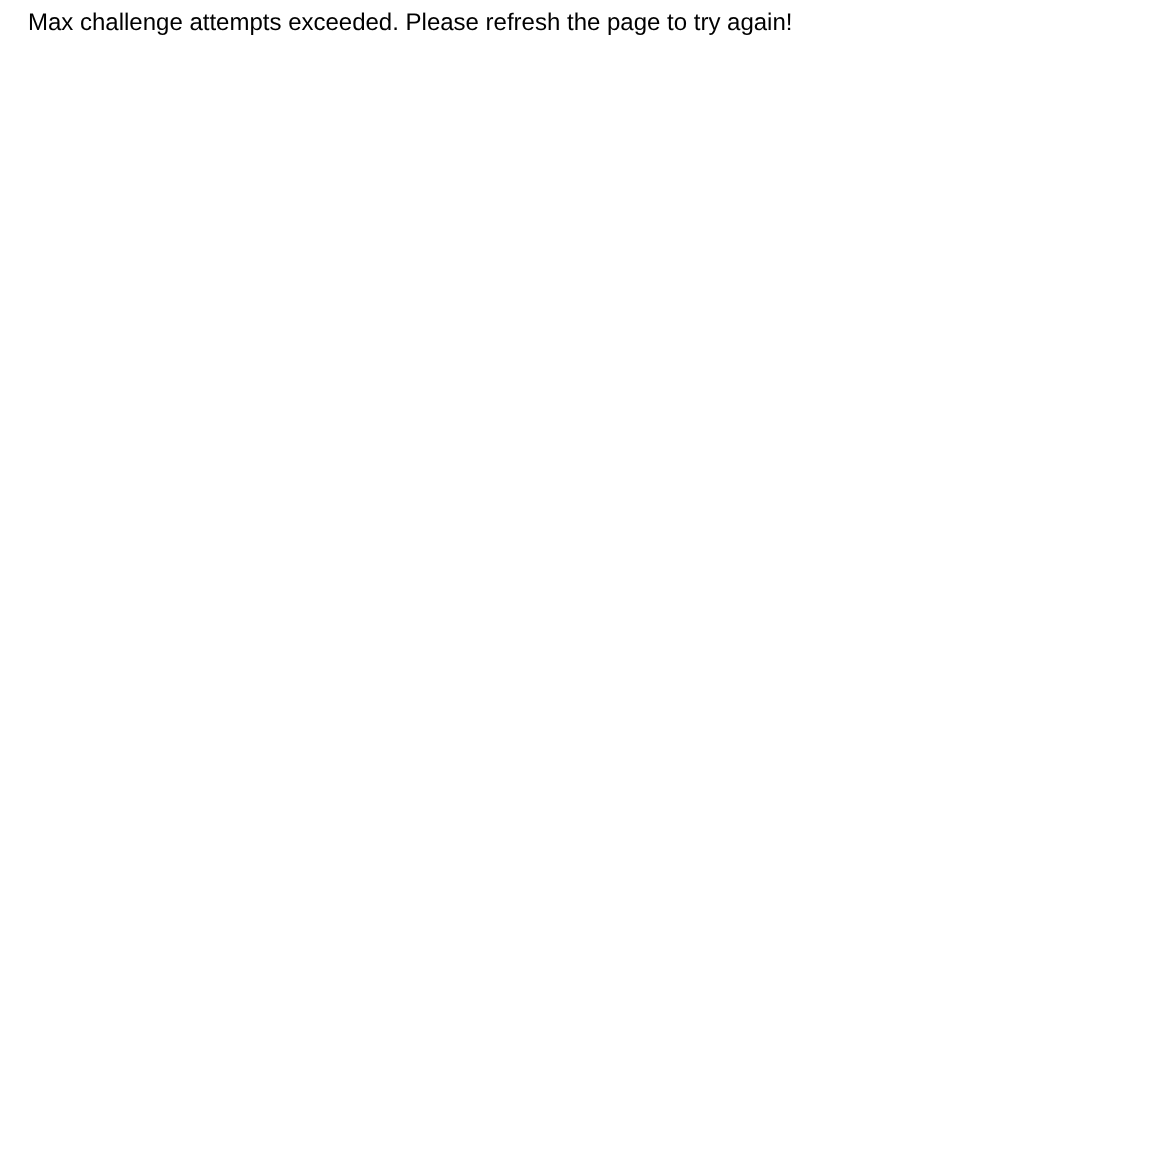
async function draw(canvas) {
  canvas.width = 1176
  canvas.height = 1159
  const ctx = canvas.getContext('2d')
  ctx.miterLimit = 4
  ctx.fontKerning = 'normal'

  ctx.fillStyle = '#fff'
  ctx.fillRect(0, 0, 1176, 1159)
  ctx.font = '24px Liberation Sans'
  ctx.fillStyle = '#000'
  ctx.fillText('Max challenge attempts exceeded. Please refresh the page to try again!', 28, 30)
}

draw(document.querySelector('canvas'))
